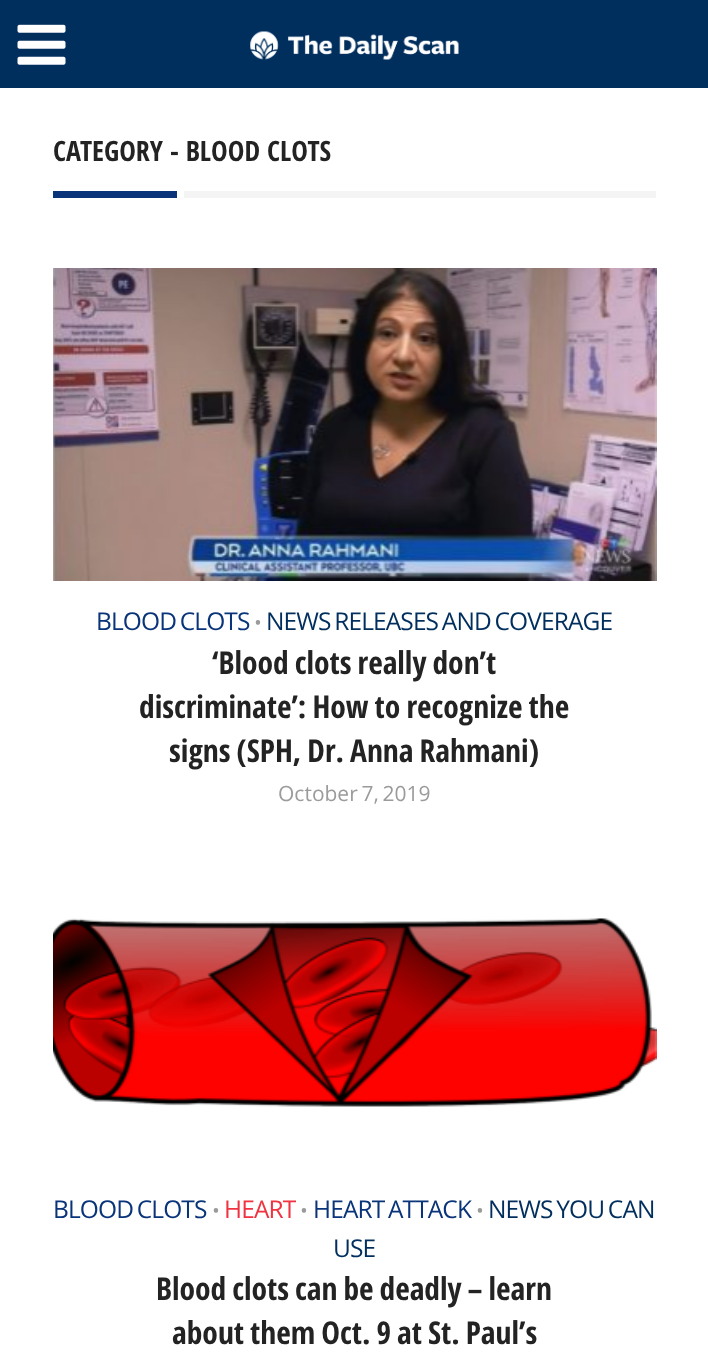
async function draw(canvas) {
  canvas.width = 708
  canvas.height = 1362
  const ctx = canvas.getContext('2d')
  ctx.miterLimit = 4
  ctx.fontKerning = 'normal'
  async function loadImage(src) {
    const img = new Image()
    img.src = src
    await img.decode()
    return img
  }

  ctx.fillStyle = '#fff'
  ctx.fillRect(0, 0, 708, 1362)
  ctx.fillStyle = '#002e5d'
  ctx.fillRect(0, 0, 708, 88)
  ctx.drawImage(await loadImage('image0.png'), 17, 24, 49, 41)
  ctx.drawImage(await loadImage('image1.png'), 250, 31, 209, 29)
  ctx.fillStyle = '#f4f4f4'
  ctx.fillRect(184, 191, 472, 7)
  ctx.font = 'bold 28px Open Sans Condensed'
  ctx.fillStyle = '#232323'
  ctx.fillText('CATEGORY - BLOOD CLOTS', 53, 161)
  ctx.fillStyle = '#09347a'
  ctx.fillRect(53, 191, 131, 7)
  ctx.fillStyle = '#fff'
  ctx.fillRect(177, 191, 7, 7)
  ctx.drawImage(await loadImage('image2.png'), 53, 268, 604, 313)
  ctx.letterSpacing = '-0.9px'
  ctx.wordSpacing = '-1.75px'
  ctx.font = '24.5px Open Sans'
  ctx.fillStyle = '#09347a'
  ctx.fillText('BLOOD CLOTS', 96, 630)
  ctx.letterSpacing = '0px'
  ctx.wordSpacing = '0px'
  ctx.font = '21px Open Sans'
  ctx.fillStyle = '#9b9b9b'
  ctx.fillText('•', 254, 630)
  ctx.letterSpacing = '-0.9px'
  ctx.wordSpacing = '-1.75px'
  ctx.font = '24.5px Open Sans'
  ctx.fillStyle = '#002e5d'
  ctx.fillText('NEWS RELEASES AND COVERAGE', 266, 630)
  ctx.letterSpacing = '0px'
  ctx.font = 'bold 31.5px Open Sans Condensed'
  ctx.fillStyle = '#232323'
  ctx.fillText('‘Blood clots really don’t', 212, 674)
  ctx.fillText('discriminate’: How to recognize the', 139, 718)
  ctx.fillText('signs (SPH, Dr. Anna Rahmani)', 169, 762)
  ctx.font = '21px Open Sans'
  ctx.fillStyle = '#9b9b9b'
  ctx.fillText('October 7, 2019', 278, 801)
  ctx.drawImage(await loadImage('image3.png'), 53, 918, 604, 189)
  ctx.letterSpacing = '-0.9px'
  ctx.font = '24.5px Open Sans'
  ctx.fillStyle = '#09347a'
  ctx.fillText('BLOOD CLOTS', 53, 1218)
  ctx.letterSpacing = '0px'
  ctx.wordSpacing = '0px'
  ctx.font = '21px Open Sans'
  ctx.fillStyle = '#9b9b9b'
  ctx.fillText('•', 212, 1218)
  ctx.letterSpacing = '-0.9px'
  ctx.font = '24.5px Open Sans'
  ctx.fillStyle = '#ef3340'
  ctx.fillText('HEART', 224, 1218)
  ctx.letterSpacing = '0px'
  ctx.font = '21px Open Sans'
  ctx.fillStyle = '#9b9b9b'
  ctx.fillText('•', 300, 1218)
  ctx.letterSpacing = '-0.9px'
  ctx.wordSpacing = '-1.75px'
  ctx.font = '24.5px Open Sans'
  ctx.fillStyle = '#09347a'
  ctx.fillText('HEART ATTACK', 313, 1218)
  ctx.letterSpacing = '0px'
  ctx.wordSpacing = '0px'
  ctx.font = '21px Open Sans'
  ctx.fillStyle = '#9b9b9b'
  ctx.fillText('•', 476, 1218)
  ctx.letterSpacing = '-0.9px'
  ctx.wordSpacing = '-1.75px'
  ctx.font = '24.5px Open Sans'
  ctx.fillStyle = '#002e5d'
  ctx.fillText('NEWS YOU CAN', 488, 1218)
  ctx.wordSpacing = '0px'
  ctx.fillText('USE', 333, 1257)
  ctx.letterSpacing = '0px'
  ctx.wordSpacing = '-1.75px'
  ctx.font = 'bold 31.5px Open Sans Condensed'
  ctx.fillStyle = '#232323'
  ctx.fillText('Blood clots', 156, 1300)
  ctx.fillText('can be deadly – learn', 295, 1300)
  ctx.fillText('about them Oct. 9 at St. Paul’s', 172, 1344)
}

draw(document.querySelector('canvas'))
